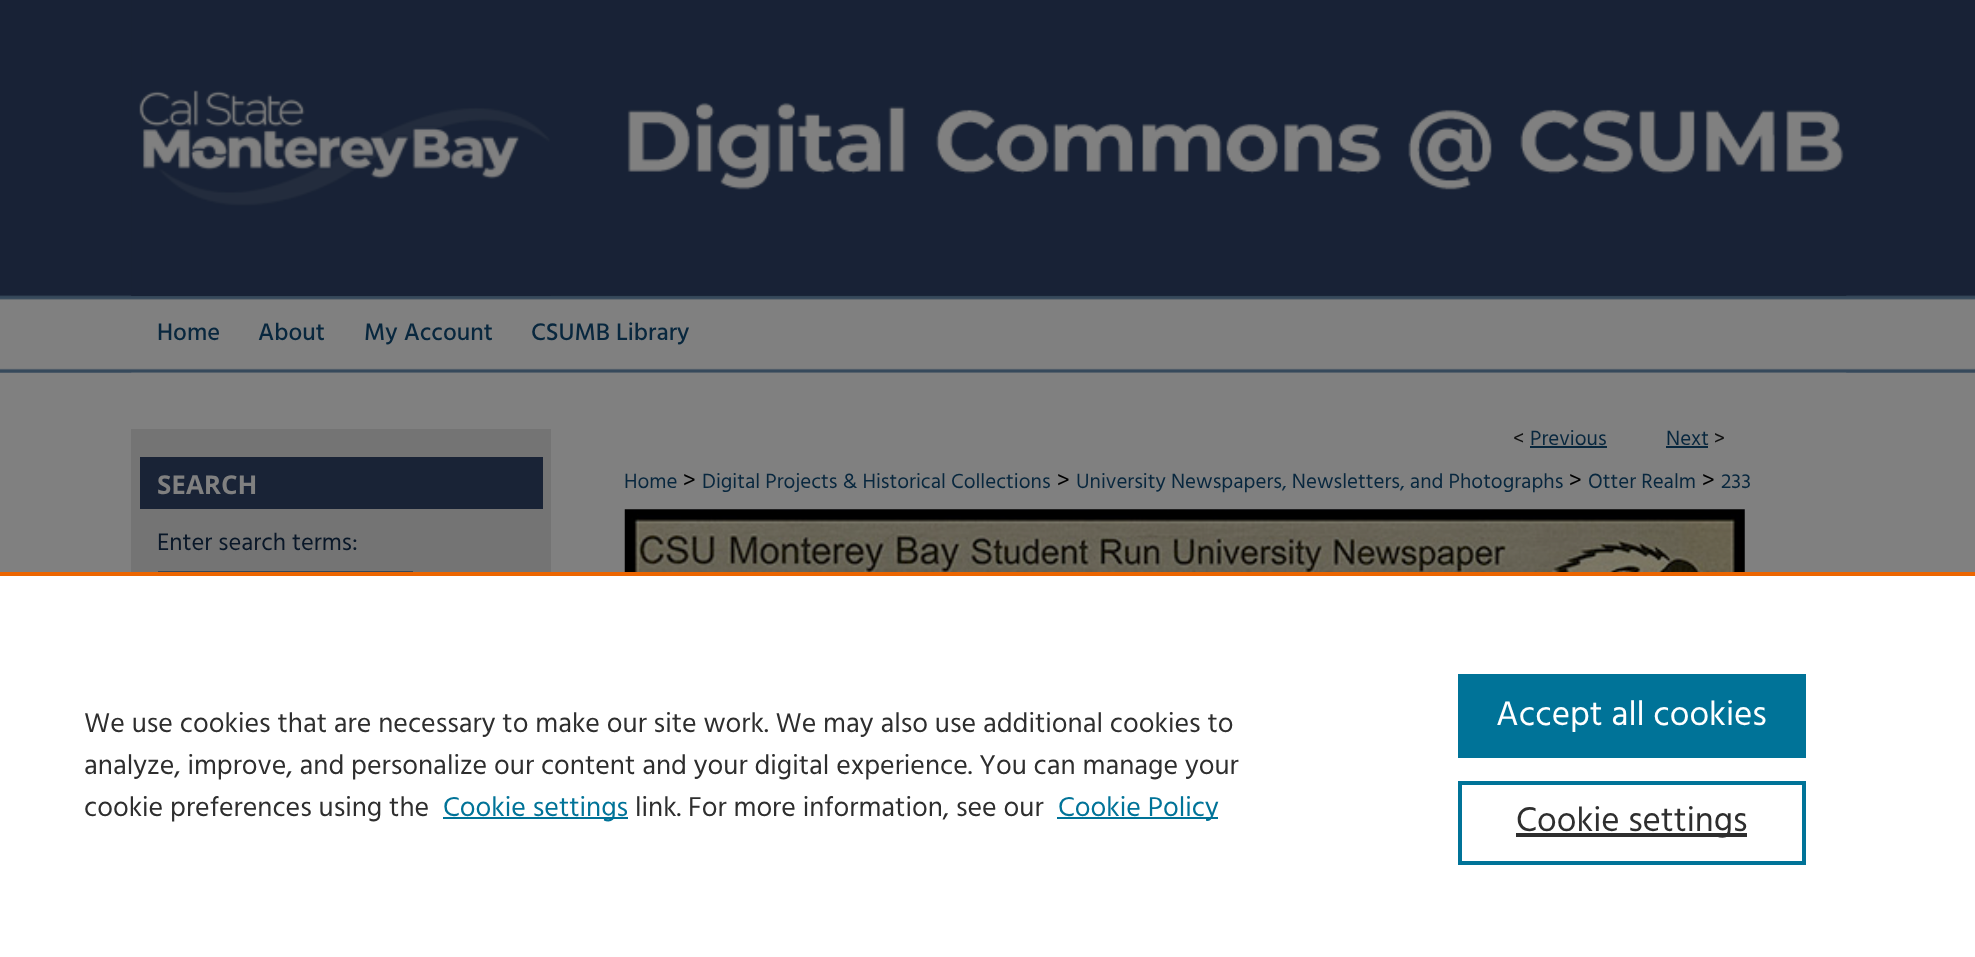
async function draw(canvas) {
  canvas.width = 1975
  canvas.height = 957
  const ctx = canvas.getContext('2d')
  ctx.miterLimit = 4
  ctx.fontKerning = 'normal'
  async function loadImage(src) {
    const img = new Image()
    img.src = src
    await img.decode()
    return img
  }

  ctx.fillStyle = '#808080'
  ctx.fillRect(0, 0, 1975, 957)
  ctx.drawImage(await loadImage('image0.png'), 0, 0, 1975, 373)
  ctx.drawImage(await loadImage('image1.png'), 131, 0, 1716, 296)
  ctx.drawImage(await loadImage('image2.png'), 131, 0, 420, 296)
  ctx.font = '500 24.5px Hind'
  ctx.fillStyle = '#08273e'
  ctx.fillText('Home', 157, 340)
  ctx.fillText('About', 258, 340)
  ctx.fillText('My Account', 364, 340)
  ctx.fillText('CSUMB Library', 531, 340)
  ctx.drawImage(await loadImage('image3.png'), 131, 372, 1716, 1)
  ctx.font = '21px Hind'
  ctx.fillStyle = '#111'
  ctx.fillText('<', 1513, 445)
  ctx.fillStyle = '#08273e'
  ctx.fillText('Previous', 1530, 445)
  ctx.fillRect(1530, 446, 77, 2)
  ctx.fillText('Next', 1666, 445)
  ctx.fillRect(1666, 446, 42, 2)
  ctx.fillStyle = '#111'
  ctx.fillText('>', 1714, 445)
  ctx.fillStyle = '#08273e'
  ctx.fillText('Home', 624, 488)
  ctx.font = '24.5px Hind'
  ctx.fillStyle = '#000'
  ctx.fillText('>', 683, 488)
  ctx.font = '21px Hind'
  ctx.fillStyle = '#08273e'
  ctx.fillText('Digital Projects & Historical Collections', 702, 488)
  ctx.font = '24.5px Hind'
  ctx.fillStyle = '#000'
  ctx.fillText('>', 1057, 488)
  ctx.font = '21px Hind'
  ctx.fillStyle = '#08273e'
  ctx.fillText('University Newspapers, Newsletters, and Photographs', 1076, 488)
  ctx.font = '24.5px Hind'
  ctx.fillStyle = '#000'
  ctx.fillText('>', 1569, 488)
  ctx.font = '21px Hind'
  ctx.fillStyle = '#08273e'
  ctx.fillText('Otter Realm', 1588, 488)
  ctx.font = '24.5px Hind'
  ctx.fillStyle = '#000'
  ctx.fillText('>', 1702, 488)
  ctx.font = '21px Hind'
  ctx.fillStyle = '#08273e'
  ctx.fillText('233', 1721, 488)
  ctx.drawImage(await loadImage('image4.png'), 624, 509, 1121, 63)
  ctx.fillStyle = '#747474'
  ctx.fillRect(131, 429, 420, 143)
  ctx.fillStyle = '#192336'
  ctx.fillRect(140, 457, 403, 52)
  ctx.font = 'bold 26px Open Sans'
  ctx.fillStyle = '#808080'
  ctx.fillText('SEARCH', 157, 494)
  ctx.font = '24.5px Hind'
  ctx.fillStyle = '#091728'
  ctx.fillText('Enter search terms:', 157, 550)
  ctx.fillStyle = '#36495b'
  ctx.fillRect(158, 571, 255, 1)
  ctx.fillStyle = '#fff'
  ctx.fillRect(0, 576, 1975, 381)
  ctx.fillStyle = '#eb6500'
  ctx.fillRect(0, 572, 1975, 4)
  ctx.font = '28px Hind'
  ctx.fillStyle = '#2e2e2e'
  ctx.fillText('We use cookies that are necessary to make our site work. We may also use additional cookies to', 84, 732)
  ctx.fillText('analyze, improve, and personalize our content and your digital experience. You can manage your', 84, 774)
  ctx.fillText('cookie preferences using the', 84, 816)
  ctx.fillStyle = '#007398'
  ctx.fillRect(443, 817, 185, 2)
  ctx.fillText('Cookie settings', 443, 816)
  ctx.fillStyle = '#2e2e2e'
  ctx.fillText('link. For more information, see our', 635, 816)
  ctx.fillStyle = '#007398'
  ctx.fillRect(1057, 817, 161, 2)
  ctx.fillText('Cookie Policy', 1058, 816)
  ctx.fillRect(1458, 674, 348, 84)
  ctx.font = '35px Hind'
  ctx.fillStyle = '#fff'
  ctx.fillText('Accept all cookies', 1496, 725)
  ctx.strokeStyle = '#007398'
  ctx.lineWidth = 4
  ctx.strokeRect(1460, 783, 344, 80)
  ctx.fillStyle = '#2e2e2e'
  ctx.fillRect(1516, 833, 231, 4)
  ctx.fillText('Cookie settings', 1516, 831)
}

draw(document.querySelector('canvas'))
